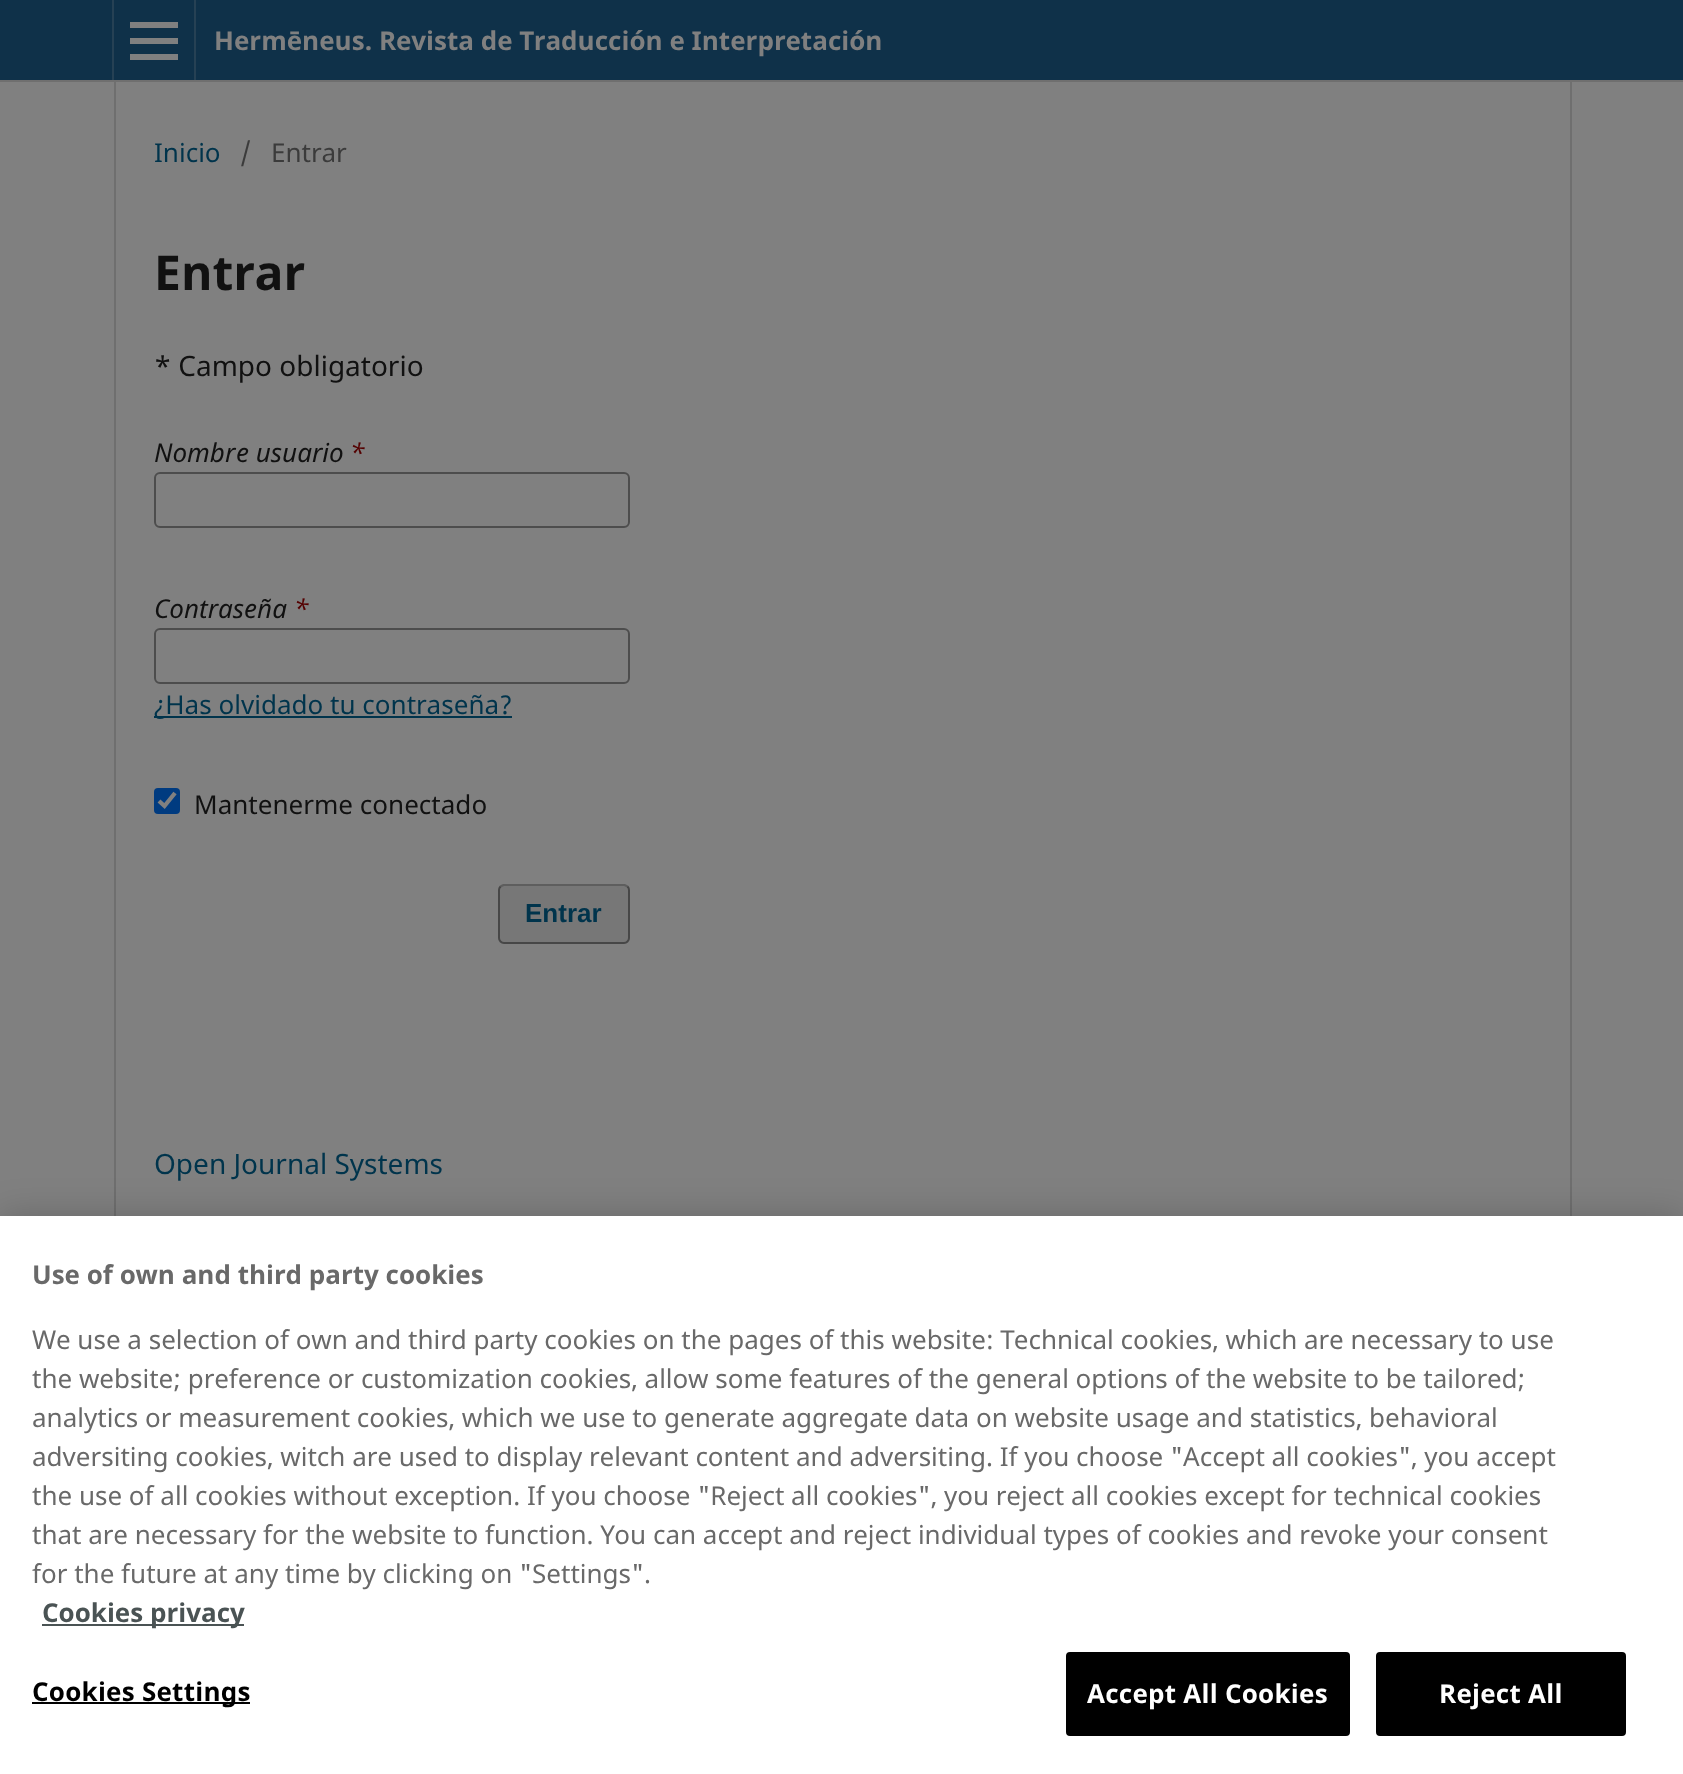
async function draw(canvas) {
  canvas.width = 1683
  canvas.height = 1774
  const ctx = canvas.getContext('2d')
  ctx.miterLimit = 4
  ctx.fontKerning = 'normal'

  ctx.fillStyle = '#808080'
  ctx.fillRect(0, 0, 1683, 1774)
  ctx.fillStyle = '#0f3149'
  ctx.fillRect(0, 0, 1683, 80)
  ctx.fillStyle = '#6f6f6f'
  ctx.fillRect(0, 80, 1683, 2)
  ctx.fillStyle = '#264154'
  ctx.fillRect(112, 0, 2, 80)
  ctx.fillRect(194, 0, 2, 80)
  ctx.fillStyle = '#808080'
  ctx.fillRect(130, 54, 48, 6)
  ctx.fillRect(130, 22, 48, 6)
  ctx.fillRect(130, 38, 48, 6)
  ctx.font = 'bold 26.05px Noto Sans'
  ctx.fillText('Hermēneus. Revista de Traducción e Interpretación', 214, 50)
  ctx.fillStyle = '#6f6f6f'
  ctx.fillRect(114, 82, 2, 1134)
  ctx.font = '26.05px Noto Sans'
  ctx.fillStyle = '#00344c'
  ctx.fillText('Inicio', 154, 162)
  ctx.fillStyle = '#3b3b3b'
  ctx.fillText('/', 240, 162)
  ctx.fillText('Entrar', 271, 162)
  ctx.font = 'bold 48px Noto Sans'
  ctx.fillStyle = '#111'
  ctx.fillText('Entrar', 154, 290)
  ctx.font = '28px Noto Sans'
  ctx.fillText('* Campo obligatorio', 154, 376)
  ctx.font = 'italic 26.05px Noto Sans'
  ctx.fillText('Nombre usuario', 154, 462)
  ctx.fillStyle = '#540000'
  ctx.fillText('*', 350, 462)
  ctx.beginPath()
  ctx.roundRect(155, 473, 474, 54, 5)
  ctx.strokeStyle = '#4d4d4d'
  ctx.lineWidth = 2
  ctx.stroke()
  ctx.fillStyle = '#111'
  ctx.fillText('Contraseña', 154, 618)
  ctx.fillStyle = '#540000'
  ctx.fillText('*', 294, 618)
  ctx.beginPath()
  ctx.roundRect(155, 629, 474, 54, 5)
  ctx.stroke()
  ctx.fillStyle = '#00344c'
  ctx.fillRect(154, 716, 358, 2)
  ctx.font = '26.05px Noto Sans'
  ctx.fillText('¿Has olvidado tu contraseña?', 154, 714)
  ctx.fillStyle = '#003b80'
  ctx.beginPath()
  ctx.roundRect(154, 788, 26, 26, 4)
  ctx.fill()
  ctx.beginPath()
  ctx.moveTo(159, 801)
  ctx.lineTo(164.5, 806)
  ctx.lineTo(175, 793)
  ctx.strokeStyle = '#808080'
  ctx.lineWidth = 4.2
  ctx.stroke()
  ctx.fillStyle = '#111'
  ctx.fillText('Mantenerme conectado', 194, 814)
  ctx.fillStyle = '#777'
  ctx.beginPath()
  ctx.roundRect(498, 884, 132, 60, 6)
  ctx.fill()
  ctx.beginPath()
  ctx.moveTo(500.5, 886.5)
  ctx.lineTo(503.5, 885)
  ctx.lineTo(624.5, 885)
  ctx.lineTo(627.5, 886.5)
  ctx.strokeStyle = '#5e5e5e'
  ctx.lineWidth = 2
  ctx.stroke()
  ctx.beginPath()
  ctx.moveTo(627.5, 886.5)
  ctx.bezierCurveTo(628.5, 887.5, 629, 888.5, 629, 890)
  ctx.lineTo(629, 938)
  ctx.bezierCurveTo(629, 939.5, 628.5, 940.5, 627.5, 941.5)
  ctx.bezierCurveTo(626.5, 942.5, 625.5, 943, 624, 943)
  ctx.lineTo(504, 943)
  ctx.bezierCurveTo(502.5, 943, 501.5, 942.5, 500.5, 941.5)
  ctx.bezierCurveTo(499.5, 940.5, 499, 939.5, 499, 938)
  ctx.lineTo(499, 890)
  ctx.bezierCurveTo(499, 888.5, 499.5, 887.5, 500.5, 886.5)
  ctx.strokeStyle = '#00000066'
  ctx.stroke()
  ctx.font = 'bold 26.05px Liberation Sans'
  ctx.fillStyle = '#00344c'
  ctx.fillText('Entrar', 525, 922)
  ctx.fillStyle = '#6f6f6f'
  ctx.fillRect(1570, 82, 2, 1134)
  ctx.font = '28px Noto Sans'
  ctx.fillStyle = '#00344c'
  ctx.fillText('Open Journal Systems', 154, 1174)
  ctx.fillStyle = '#00000033'
  ctx.filter = 'blur(18px)'
  ctx.beginPath()
  ctx.rect(0, 1216, 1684, 558)
  ctx.fill()
  ctx.filter = 'none'
  ctx.fillStyle = '#fff'
  ctx.fillRect(0, 1216, 1683, 558)
  ctx.font = 'bold 26.02px Noto Sans'
  ctx.fillStyle = '#696969'
  ctx.fillText('Use of own and third party cookies', 32, 1284)
  ctx.font = '26.02px Noto Sans'
  ctx.fillText('We use a selection of own and third party cookies on the pages of this website: Technical cookies, which are necessary to use', 32, 1349)
  ctx.fillText('the website; preference or customization cookies, allow some features of the general options of the website to be tailored;', 32, 1388)
  ctx.fillText('analytics or measurement cookies, which we use to generate aggregate data on website usage and statistics, behavioral', 32, 1427)
  ctx.fillText('adversiting cookies, witch are used to display relevant content and adversiting. If you choose "Accept all cookies", you accept', 32, 1466)
  ctx.fillText('the use of all cookies without exception. If you choose "Reject all cookies", you reject all cookies except for technical cookies', 32, 1505)
  ctx.fillText('that are necessary for the website to function. You can accept and reject individual types of cookies and revoke your consent', 32, 1544)
  ctx.fillText('for the future at any time by clicking on "Settings".', 32, 1583)
  ctx.fillStyle = '#4a5354'
  ctx.fillRect(42, 1624, 202, 2)
  ctx.font = 'bold 26.02px Noto Sans'
  ctx.fillText('Cookies privacy', 42, 1622)
  ctx.fillStyle = '#000'
  ctx.fillRect(32, 1702, 218, 2)
  ctx.letterSpacing = '0.25px'
  ctx.fillText('Cookies Settings', 32, 1701)
  ctx.beginPath()
  ctx.roundRect(1067, 1653, 282, 82, 3)
  ctx.fill()
  ctx.strokeStyle = '#000'
  ctx.stroke()
  ctx.fillStyle = '#fff'
  ctx.fillText('Accept All Cookies', 1087, 1703)
  ctx.fillStyle = '#000'
  ctx.beginPath()
  ctx.roundRect(1377, 1653, 248, 82, 3)
  ctx.fill()
  ctx.stroke()
  ctx.fillStyle = '#fff'
  ctx.fillText('Reject All', 1439, 1703)
}

draw(document.querySelector('canvas'))
